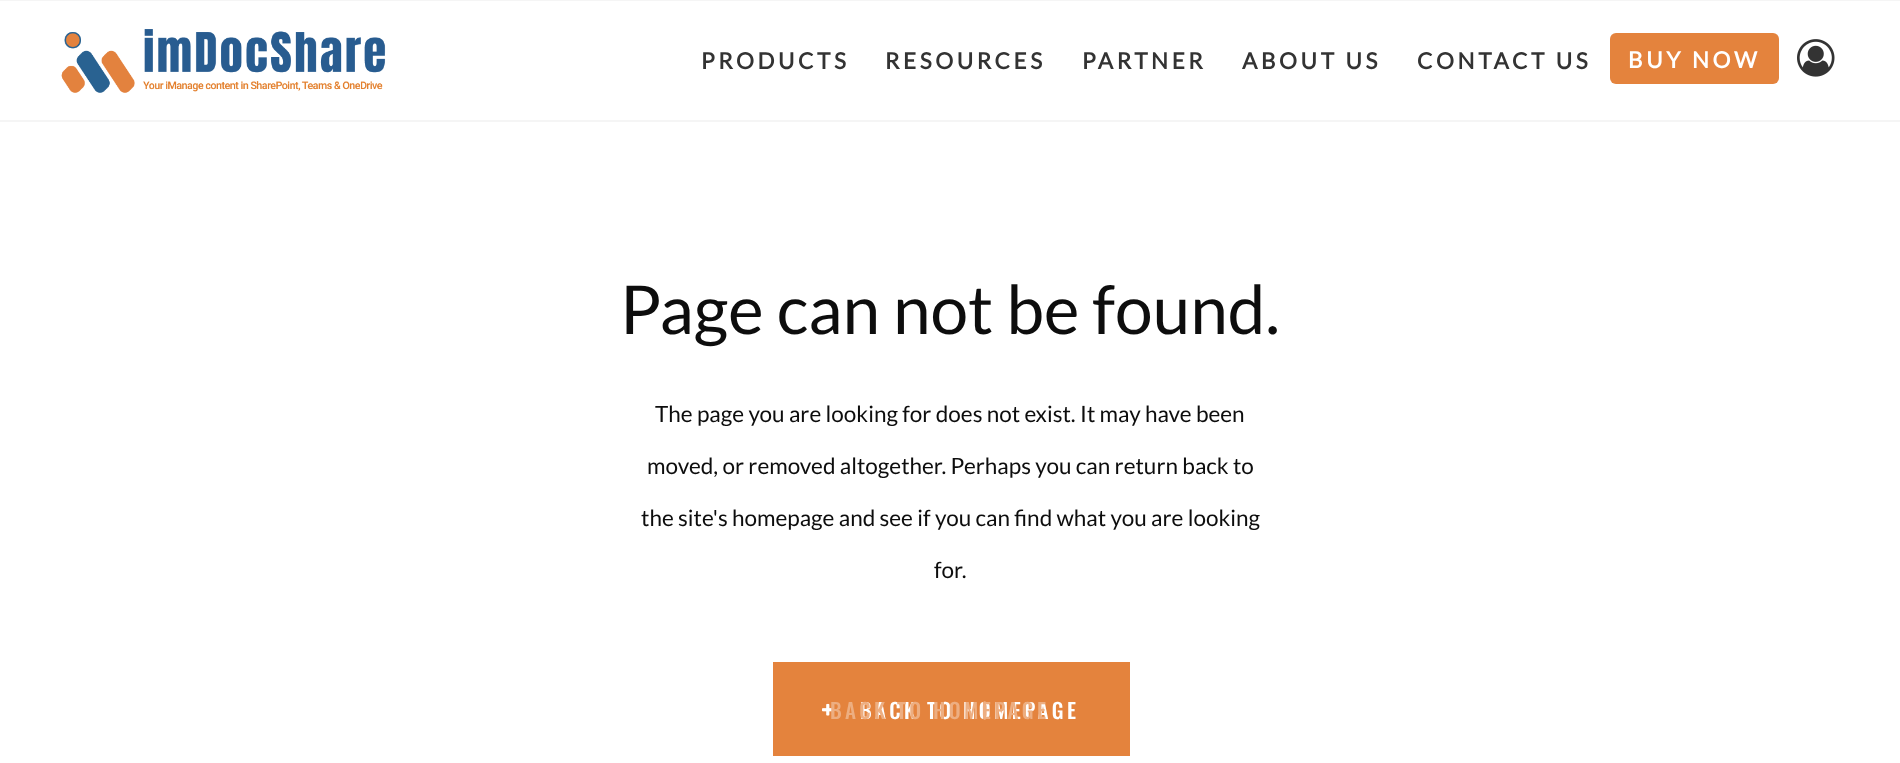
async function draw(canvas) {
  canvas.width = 1900
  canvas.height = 763
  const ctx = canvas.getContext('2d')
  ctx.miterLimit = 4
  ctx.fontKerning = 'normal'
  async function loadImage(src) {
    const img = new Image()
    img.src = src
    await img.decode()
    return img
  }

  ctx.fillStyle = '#fff'
  ctx.fillRect(0, 0, 1900, 763)
  ctx.fillStyle = '#f5f5f5'
  ctx.fillRect(0, 120, 1900, 2)
  ctx.fillRect(0, 0, 1900, 1)
  ctx.drawImage(await loadImage('image0.png'), 61, 29, 325, 64)
  ctx.letterSpacing = '3.6px'
  ctx.font = 'bold 22.5px Lato'
  ctx.fillStyle = '#333'
  ctx.fillText('PRODUCTS', 701, 69)
  ctx.fillText('RESOURCES', 885, 69)
  ctx.fillText('PARTNER', 1082, 69)
  ctx.fillText('ABOUT US', 1242, 69)
  ctx.fillText('CONTACT US', 1417, 69)
  ctx.fillStyle = '#e4833d'
  ctx.beginPath()
  ctx.roundRect(1610, 33, 169, 51, 6)
  ctx.fill()
  ctx.fillStyle = '#fff'
  ctx.fillText('BUY NOW', 1628, 68)
  ctx.drawImage(await loadImage('image1.png'), 1797, 39, 38, 38)
  ctx.letterSpacing = '0px'
  ctx.font = '67.5px Lato'
  ctx.fillStyle = '#0d0d0d'
  ctx.fillText('Page can not be found.', 620, 334)
  ctx.font = '22.5px Lato'
  ctx.fillText('The page you are looking for does not exist. It may have been', 655, 422)
  ctx.fillText('moved, or removed altogether. Perhaps you can return back to', 647, 474)
  ctx.fillText('the site\'s homepage and see if you can find what you are looking', 641, 526)
  ctx.fillText('for.', 934, 578)
  ctx.fillStyle = '#e4833d'
  ctx.fillRect(773, 662, 357, 94)
  ctx.drawImage(await loadImage('image2.png'), 822, 703, 12, 13)
  ctx.letterSpacing = '3.4px'
  ctx.font = '500 21px Oswald'
  ctx.fillStyle = '#fff'
  ctx.fillText('BACK TO HOMEPAGE', 860, 719)
  ctx.fillStyle = '#edae81'
  ctx.fillText('BACK TO HOMEPAGE', 830, 719)
}

draw(document.querySelector('canvas'))
